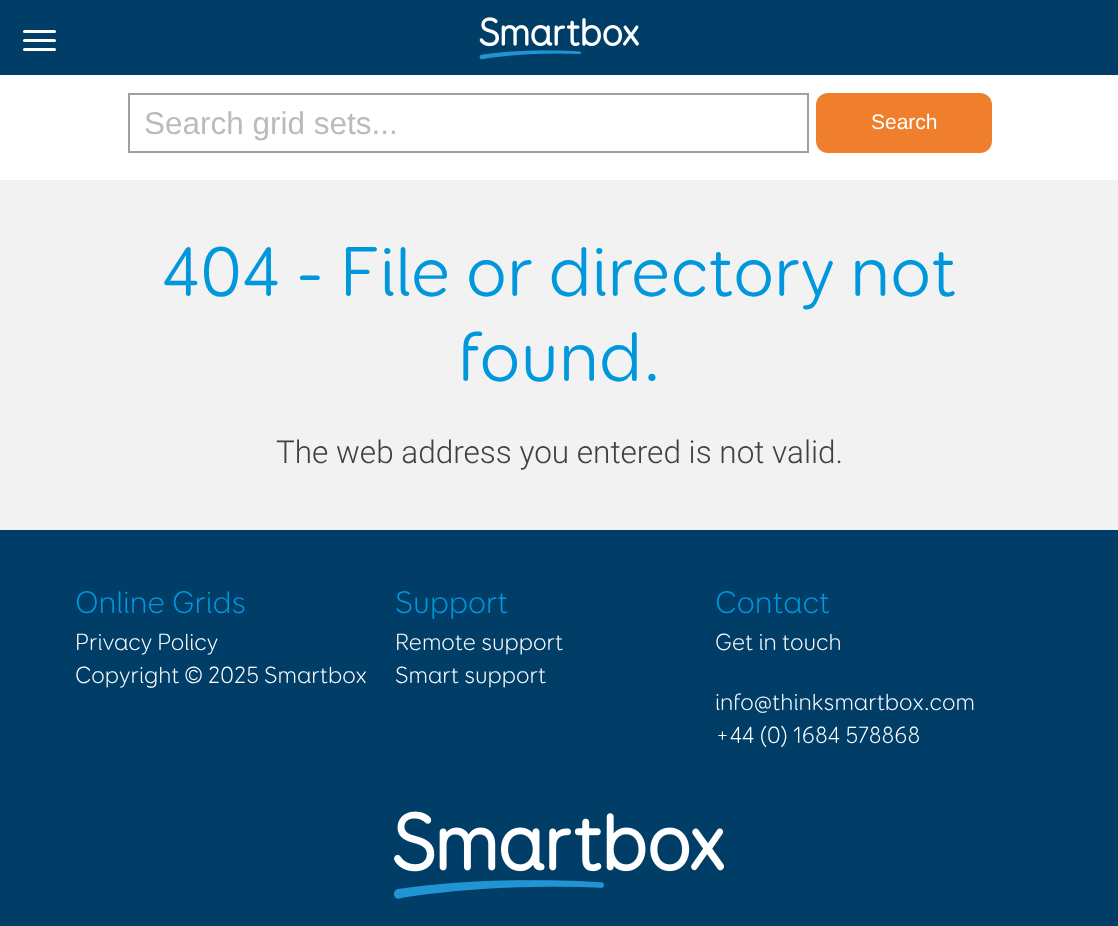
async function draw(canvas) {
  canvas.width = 1118
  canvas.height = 926
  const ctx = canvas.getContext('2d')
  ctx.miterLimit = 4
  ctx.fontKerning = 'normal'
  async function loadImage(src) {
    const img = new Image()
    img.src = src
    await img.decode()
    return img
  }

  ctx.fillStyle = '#003e67'
  ctx.fillRect(0, 0, 1118, 926)
  ctx.fillStyle = '#fff'
  ctx.beginPath()
  ctx.roundRect(23, 30, 33, 3, 1.5)
  ctx.fill()
  ctx.beginPath()
  ctx.roundRect(23, 39, 33, 3, 1.5)
  ctx.fill()
  ctx.beginPath()
  ctx.roundRect(23, 48, 33, 3, 1.5)
  ctx.fill()
  ctx.drawImage(await loadImage('image0.png'), 479, 17, 160, 43)
  ctx.fillRect(0, 75, 1118, 105)
  ctx.strokeStyle = '#a0a0a0'
  ctx.lineWidth = 2
  ctx.strokeRect(129, 94, 679, 58)
  ctx.font = '31.5px Liberation Sans'
  ctx.fillStyle = '#bbb'
  ctx.fillText('Search grid sets...', 144, 134)
  ctx.fillStyle = '#ef7e2d'
  ctx.beginPath()
  ctx.roundRect(816, 93, 176, 60, 12)
  ctx.fill()
  ctx.font = '21px Liberation Sans'
  ctx.fillStyle = '#fff'
  ctx.fillText('Search', 871, 129)
  ctx.fillStyle = '#f2f2f2'
  ctx.fillRect(0, 180, 1118, 350)
  ctx.font = '70.9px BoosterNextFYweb'
  ctx.fillStyle = '#0097dd'
  ctx.fillText('404 - File or directory not', 162, 296)
  ctx.fillText('found.', 458, 381)
  ctx.font = '300 31.5px Roboto'
  ctx.fillStyle = '#404041'
  ctx.fillText('The web address you entered is not valid.', 276, 463)
  ctx.font = '31.5px "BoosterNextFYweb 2"'
  ctx.fillStyle = '#0097dd'
  ctx.fillText('Online Grids', 75, 613)
  ctx.font = '23.6px "BoosterNextFYweb 2"'
  ctx.fillStyle = '#fff'
  ctx.fillText('Privacy Policy', 75, 650)
  ctx.fillText('Copyright © 2025 Smartbox', 75, 683)
  ctx.font = '31.5px "BoosterNextFYweb 2"'
  ctx.fillStyle = '#0097dd'
  ctx.fillText('Support', 395, 613)
  ctx.font = '23.6px "BoosterNextFYweb 2"'
  ctx.fillStyle = '#fff'
  ctx.fillText('Remote support', 395, 650)
  ctx.fillText('Smart support', 395, 683)
  ctx.font = '31.5px "BoosterNextFYweb 2"'
  ctx.fillStyle = '#0097dd'
  ctx.fillText('Contact', 715, 613)
  ctx.font = '23.6px "BoosterNextFYweb 2"'
  ctx.fillStyle = '#fff'
  ctx.fillText('Get in touch', 715, 650)
  ctx.fillText('info@thinksmartbox.com', 715, 710)
  ctx.fillText('+44 (0) 1684 578868', 715, 743)
  ctx.drawImage(await loadImage('image1.png'), 393, 811, 331, 88)
}

draw(document.querySelector('canvas'))
